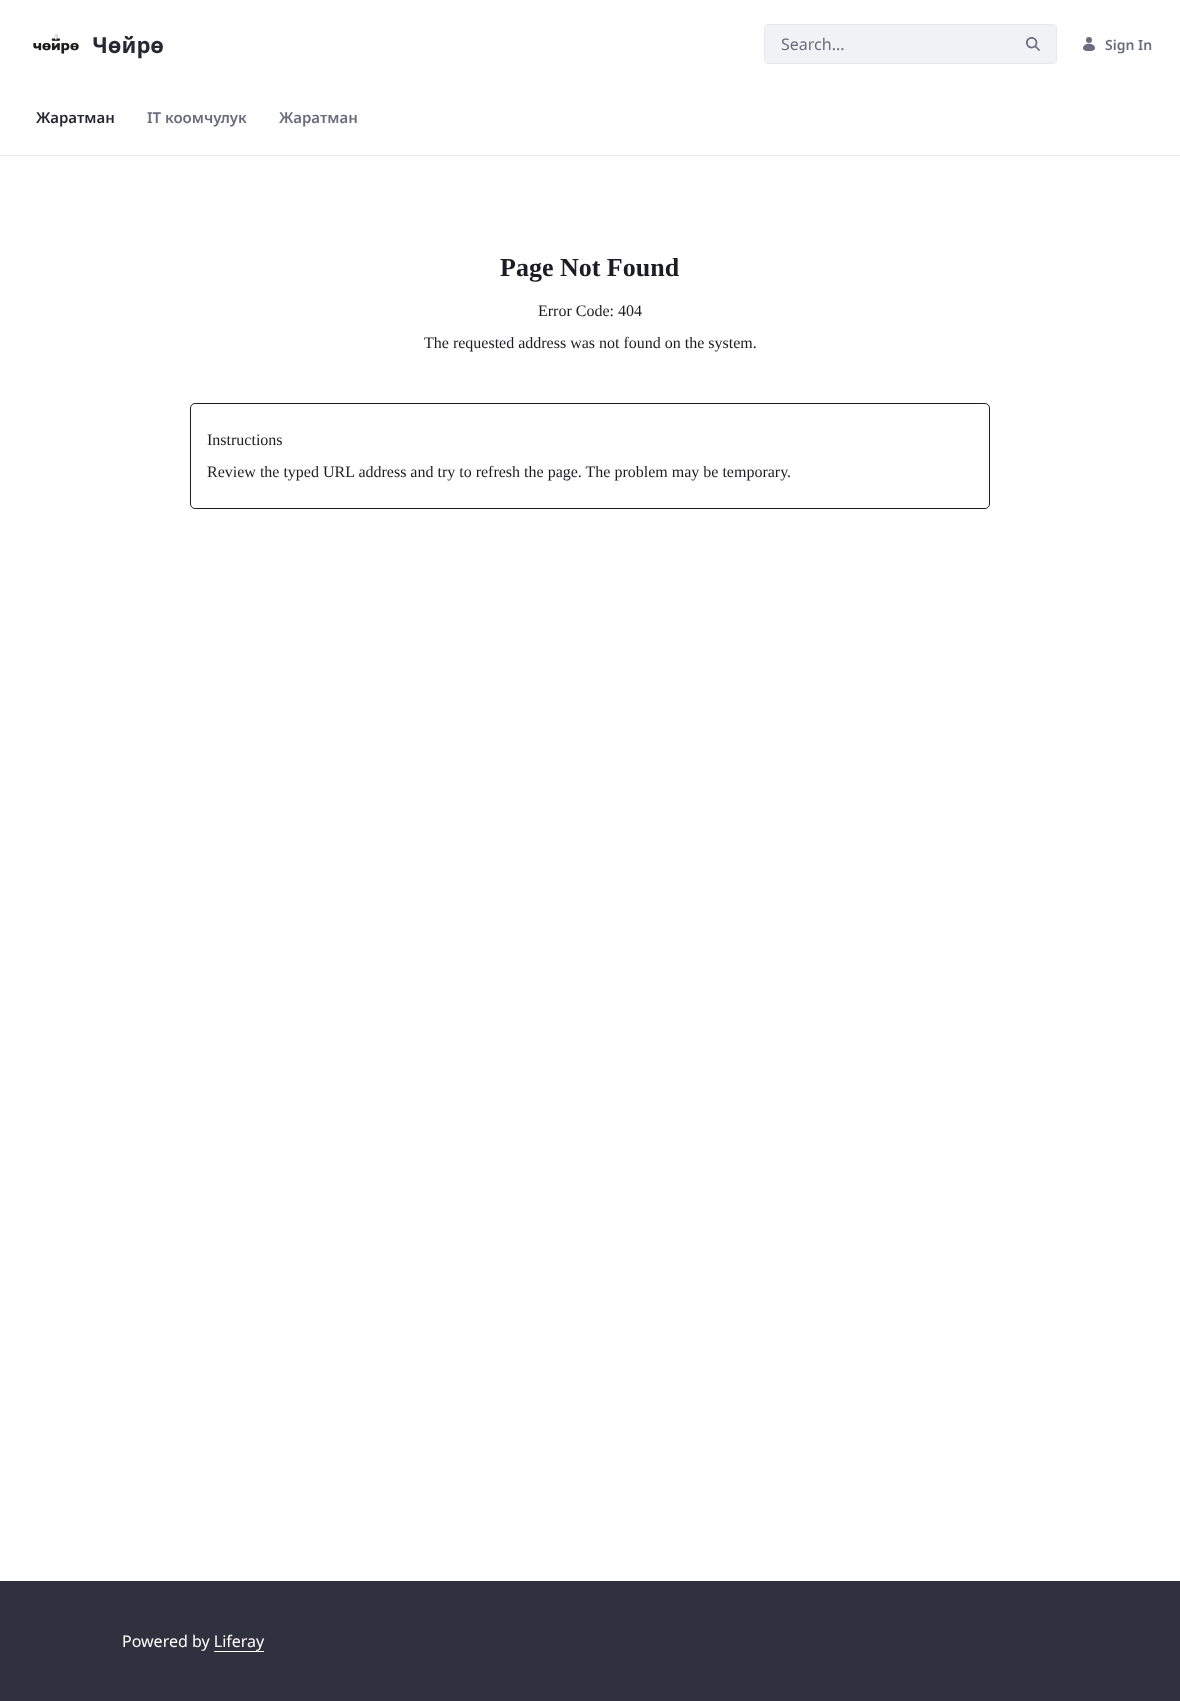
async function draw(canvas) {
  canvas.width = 1180
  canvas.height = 1701
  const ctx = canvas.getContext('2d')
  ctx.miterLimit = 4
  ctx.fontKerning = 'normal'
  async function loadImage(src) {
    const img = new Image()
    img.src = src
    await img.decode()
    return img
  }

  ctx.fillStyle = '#fff'
  ctx.fillRect(0, 0, 1180, 1701)
  ctx.drawImage(await loadImage('image0.png'), 33, 34, 46, 20)
  ctx.font = 'bold 22px Noto Sans'
  ctx.fillStyle = '#272833'
  ctx.fillText('Чөйрө', 92, 53)
  ctx.fillStyle = '#f1f2f5'
  ctx.beginPath()
  ctx.roundRect(765, 25, 245, 38, [3, 0, 0, 3])
  ctx.fill()
  ctx.fillStyle = '#e7e7ed'
  ctx.beginPath()
  ctx.moveTo(768, 24)
  ctx.lineTo(1010, 24)
  ctx.lineTo(1010, 64)
  ctx.lineTo(768, 64)
  ctx.bezierCurveTo(766, 64, 764, 62, 764, 60)
  ctx.lineTo(764, 28)
  ctx.bezierCurveTo(764, 26, 766, 24, 768, 24)
  ctx.closePath()
  ctx.moveTo(768, 25)
  ctx.lineTo(1010, 25)
  ctx.lineTo(1010, 63)
  ctx.lineTo(768, 63)
  ctx.bezierCurveTo(766, 63, 765, 62, 765, 60)
  ctx.lineTo(765, 28)
  ctx.bezierCurveTo(765, 26, 766, 25, 768, 25)
  ctx.closePath()
  ctx.fill('evenodd')
  ctx.font = '16px Noto Sans'
  ctx.fillStyle = '#6b6c7e'
  ctx.fillText('Search...', 781, 50)
  ctx.fillStyle = '#f1f2f5'
  ctx.beginPath()
  ctx.roundRect(1010, 25, 46, 38, [0, 3, 3, 0])
  ctx.fill()
  ctx.fillStyle = '#e7e7ed'
  ctx.beginPath()
  ctx.moveTo(1010, 24)
  ctx.lineTo(1053, 24)
  ctx.bezierCurveTo(1055, 24, 1057, 26, 1057, 28)
  ctx.lineTo(1057, 60)
  ctx.bezierCurveTo(1057, 62, 1055, 64, 1053, 64)
  ctx.lineTo(1010, 64)
  ctx.closePath()
  ctx.moveTo(1010, 25)
  ctx.lineTo(1053, 25)
  ctx.bezierCurveTo(1055, 25, 1056, 26, 1056, 28)
  ctx.lineTo(1056, 60)
  ctx.bezierCurveTo(1056, 62, 1055, 63, 1053, 63)
  ctx.lineTo(1010, 63)
  ctx.closePath()
  ctx.fill('evenodd')
  ctx.drawImage(await loadImage('image1.png'), 1026, 37, 14, 14)
  ctx.drawImage(await loadImage('image2.png'), 1083, 37, 12, 14)
  ctx.font = '600 14px Noto Sans'
  ctx.fillStyle = '#6b6c7e'
  ctx.fillText('Sign In', 1105, 50)
  ctx.fillStyle = '#e7e7ed'
  ctx.fillRect(0, 155, 1180, 1)
  ctx.font = '600 15px Noto Sans'
  ctx.fillStyle = '#272833'
  ctx.fillText('Жаратман', 36, 123)
  ctx.fillStyle = '#6b6c7e'
  ctx.fillText('IT коомчулук', 147, 123)
  ctx.fillText('Жаратман', 279, 123)
  ctx.font = 'bold 26px Liberation Serif'
  ctx.fillStyle = '#1c1c24'
  ctx.fillText('Page Not Found', 500, 276)
  ctx.font = '16px Liberation Serif'
  ctx.fillText('Error Code: 404', 538, 316)
  ctx.fillText('The requested address was not found on the system.', 424, 348)
  ctx.beginPath()
  ctx.roundRect(190.5, 403.5, 799, 105, 4.5)
  ctx.strokeStyle = '#1c1c24'
  ctx.stroke()
  ctx.fillText('Instructions', 207, 445)
  ctx.fillText('Review the typed URL address and try to refresh the page. The problem may be temporary.', 207, 477)
  ctx.fillStyle = '#30313f'
  ctx.fillRect(0, 1581, 1180, 120)
  ctx.font = '16px Noto Sans'
  ctx.fillStyle = '#fff'
  ctx.fillText('Powered by Liferay', 122, 1647)
  ctx.fillRect(214, 1651, 50, 1)
}

draw(document.querySelector('canvas'))
